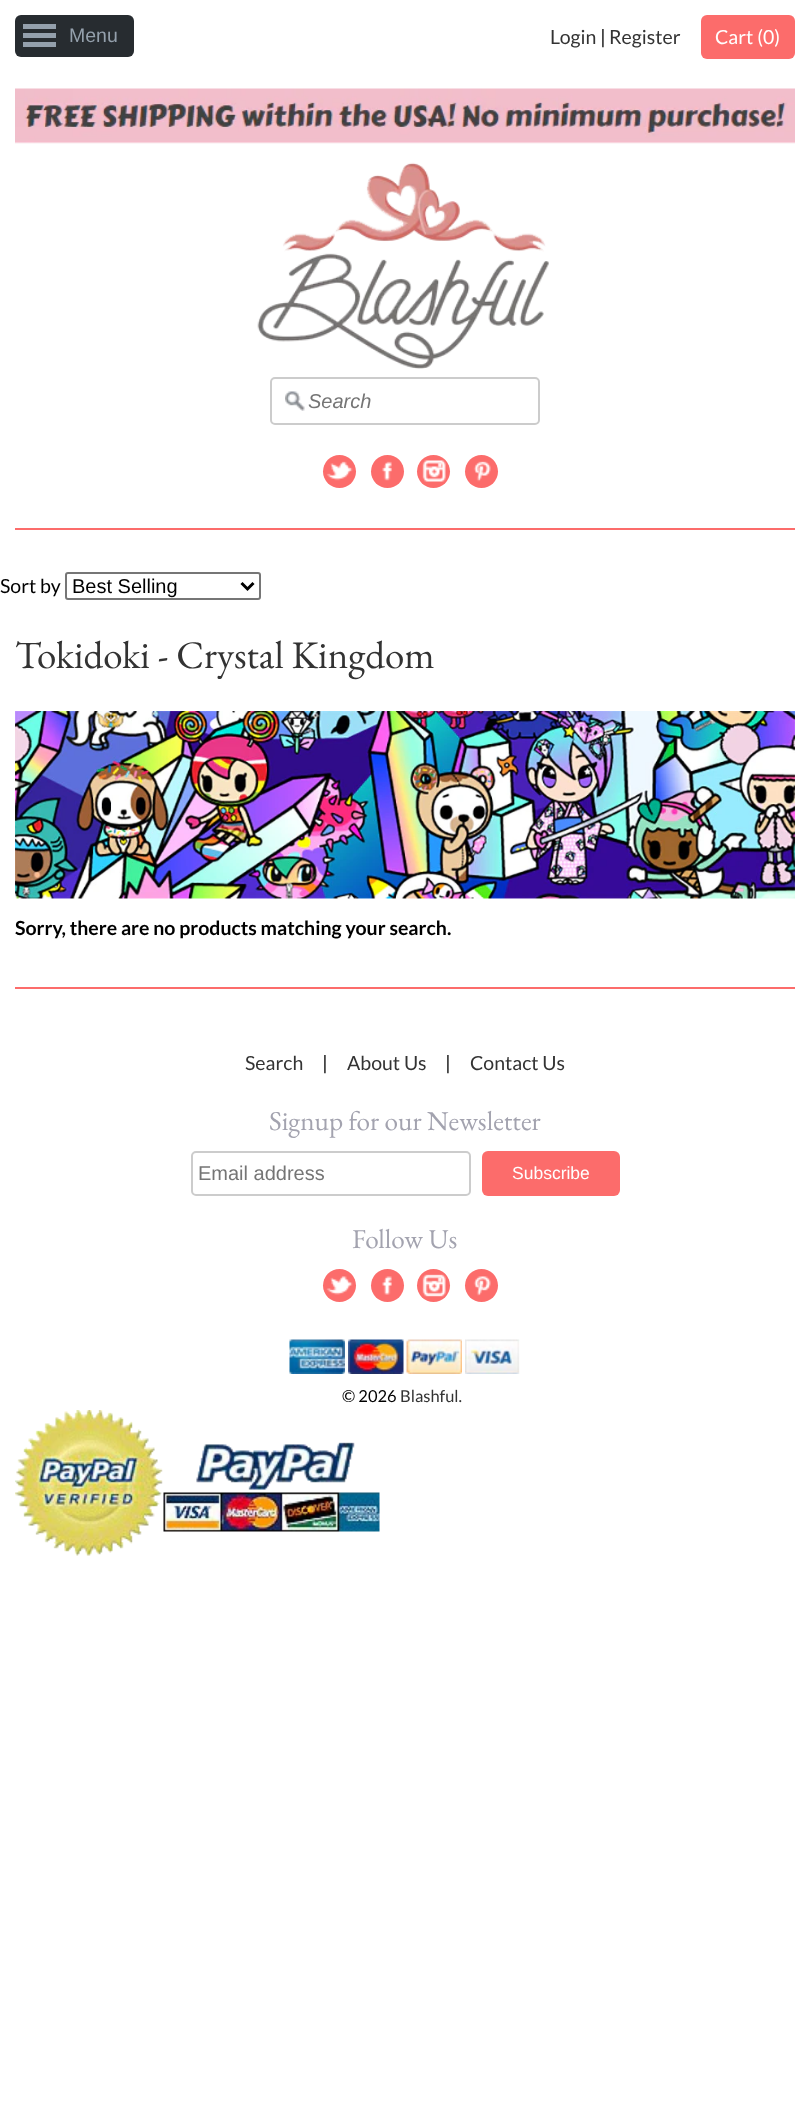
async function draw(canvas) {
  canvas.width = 809
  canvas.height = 2119
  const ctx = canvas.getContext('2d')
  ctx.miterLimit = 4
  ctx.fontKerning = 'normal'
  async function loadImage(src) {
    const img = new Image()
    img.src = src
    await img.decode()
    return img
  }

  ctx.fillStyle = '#fff'
  ctx.fillRect(0, 0, 809, 2119)
  ctx.fillStyle = '#272c30'
  ctx.beginPath()
  ctx.roundRect(15, 15, 119, 42, 6)
  ctx.fill()
  ctx.fillStyle = '#94a0ac'
  ctx.fillRect(23, 24, 33, 5)
  ctx.fillRect(23, 33, 33, 5)
  ctx.font = '19.5px Liberation Sans'
  ctx.fillText('Menu', 69, 42)
  ctx.fillRect(23, 42, 33, 5)
  ctx.font = '19.5px Lato'
  ctx.fillStyle = '#333'
  ctx.fillText('Login', 550, 44)
  ctx.fillStyle = '#000'
  ctx.fillText('|', 600, 44)
  ctx.fillStyle = '#333'
  ctx.fillText('Register', 609, 44)
  ctx.fillStyle = '#fc6c6b'
  ctx.beginPath()
  ctx.roundRect(701, 15, 94, 44, 6)
  ctx.fill()
  ctx.fillStyle = '#fff'
  ctx.fillText('Cart (0)', 715, 44)
  ctx.drawImage(await loadImage('image0.png'), 15, 88, 780, 281)
  ctx.drawImage(await loadImage('image1.png'), 285, 391, 20, 20)
  ctx.beginPath()
  ctx.roundRect(271, 378, 268, 46, 4)
  ctx.strokeStyle = '#ccc'
  ctx.lineWidth = 2
  ctx.stroke()
  ctx.font = 'italic 20px Liberation Sans'
  ctx.fillStyle = '#757575'
  ctx.fillText('Search', 308, 408)
  ctx.fillStyle = '#fc6c6b'
  ctx.beginPath()
  ctx.arc(339.5, 471.5, 16.5, 0, 2 * Math.PI)
  ctx.fill()
  ctx.drawImage(await loadImage('image2.png'), 326, 461, 27, 20)
  ctx.beginPath()
  ctx.arc(387.5, 471.5, 16.5, 0, 2 * Math.PI)
  ctx.fill()
  ctx.drawImage(await loadImage('image3.png'), 382, 461, 10, 20)
  ctx.beginPath()
  ctx.arc(433.5, 471.5, 16.5, 0, 2 * Math.PI)
  ctx.fill()
  ctx.drawImage(await loadImage('image4.png'), 422, 460, 24, 22)
  ctx.beginPath()
  ctx.arc(481.5, 471.5, 16.5, 0, 2 * Math.PI)
  ctx.fill()
  ctx.drawImage(await loadImage('image5.png'), 473, 461, 18, 21)
  ctx.fillRect(15, 528, 780, 2)
  ctx.font = '19.5px Lato'
  ctx.fillStyle = '#000'
  ctx.fillText('Sort by', 0, 593)
  ctx.beginPath()
  ctx.roundRect(66, 573, 194, 26, 2)
  ctx.strokeStyle = '#767676'
  ctx.stroke()
  ctx.beginPath()
  ctx.moveTo(241.5, 583)
  ctx.lineTo(247.5, 589)
  ctx.lineTo(253.5, 583)
  ctx.strokeStyle = '#000'
  ctx.lineWidth = 3
  ctx.stroke()
  ctx.font = '20px Liberation Sans'
  ctx.fillText('Best Selling', 72, 593)
  ctx.font = '39px EB Garamond'
  ctx.fillStyle = '#333'
  ctx.fillText('Tokidoki - Crystal Kingdom', 15, 668)
  ctx.drawImage(await loadImage('image6.png'), 15, 711, 780, 188)
  ctx.font = 'bold 19.5px Lato'
  ctx.fillStyle = '#000'
  ctx.fillText('Sorry, there are no products matching your search.', 15, 935)
  ctx.fillStyle = '#fc6c6b'
  ctx.fillRect(15, 987, 780, 2)
  ctx.font = '19.5px Lato'
  ctx.fillStyle = '#333'
  ctx.fillText('Search', 245, 1070)
  ctx.fillStyle = '#000'
  ctx.fillText('|', 322, 1070)
  ctx.fillStyle = '#333'
  ctx.fillText('About Us', 347, 1070)
  ctx.fillStyle = '#000'
  ctx.fillText('|', 445, 1070)
  ctx.fillStyle = '#333'
  ctx.fillText('Contact Us', 470, 1070)
  ctx.font = '27.25px EB Garamond'
  ctx.fillStyle = '#a3a3af'
  ctx.fillText('Signup for our Newsletter', 269, 1130)
  ctx.beginPath()
  ctx.roundRect(192, 1152, 278, 43, 4)
  ctx.strokeStyle = '#ccc'
  ctx.lineWidth = 2
  ctx.stroke()
  ctx.font = '20px Liberation Sans'
  ctx.fillStyle = '#757575'
  ctx.fillText('Email address', 198, 1180)
  ctx.fillStyle = '#fc6c6b'
  ctx.beginPath()
  ctx.roundRect(482, 1151, 138, 45, 6)
  ctx.fill()
  ctx.font = '17.5px Liberation Sans'
  ctx.fillStyle = '#fff'
  ctx.fillText('Subscribe', 512, 1179)
  ctx.font = '27.25px EB Garamond'
  ctx.fillStyle = '#a3a3af'
  ctx.fillText('Follow Us', 352, 1248)
  ctx.fillStyle = '#fc6c6b'
  ctx.beginPath()
  ctx.arc(339.5, 1285.5, 16.5, 0, 2 * Math.PI)
  ctx.fill()
  ctx.drawImage(await loadImage('image7.png'), 326, 1276, 27, 19)
  ctx.beginPath()
  ctx.arc(387.5, 1285.5, 16.5, 0, 2 * Math.PI)
  ctx.fill()
  ctx.drawImage(await loadImage('image8.png'), 382, 1276, 10, 19)
  ctx.beginPath()
  ctx.arc(433.5, 1285.5, 16.5, 0, 2 * Math.PI)
  ctx.fill()
  ctx.drawImage(await loadImage('image9.png'), 422, 1274, 24, 23)
  ctx.beginPath()
  ctx.arc(481.5, 1285.5, 16.5, 0, 2 * Math.PI)
  ctx.fill()
  ctx.drawImage(await loadImage('image10.png'), 473, 1276, 18, 20)
  ctx.drawImage(await loadImage('image11.png'), 289, 1339, 56, 35)
  ctx.drawImage(await loadImage('image12.png'), 348, 1339, 56, 35)
  ctx.drawImage(await loadImage('image13.png'), 406, 1339, 56, 35)
  ctx.drawImage(await loadImage('image14.png'), 465, 1339, 55, 35)
  ctx.font = '16.5px Lato'
  ctx.fillStyle = '#000'
  ctx.fillText('© 2026', 342, 1402)
  ctx.fillStyle = '#333'
  ctx.fillText('Blashful.', 400, 1402)
  ctx.drawImage(await loadImage('image15.png'), 15, 1410, 365, 146)
}

draw(document.querySelector('canvas'))
